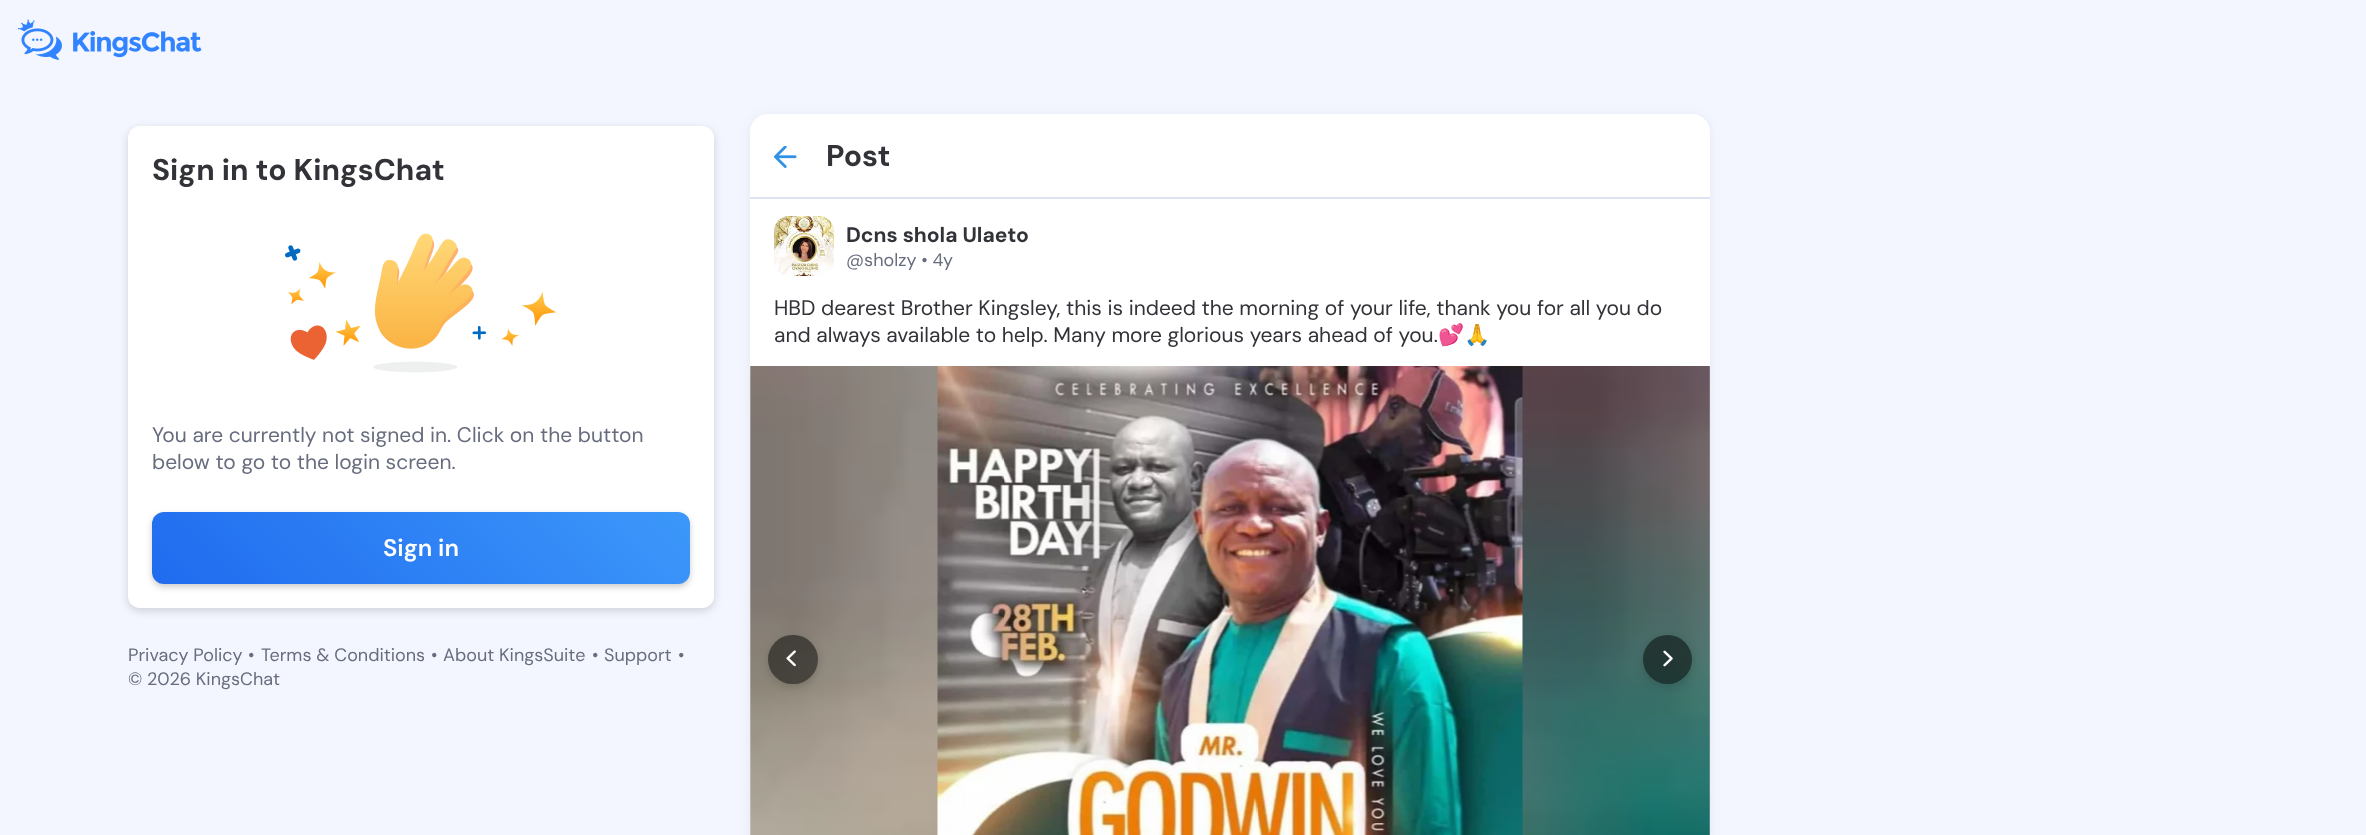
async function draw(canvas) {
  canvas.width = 2366
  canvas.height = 835
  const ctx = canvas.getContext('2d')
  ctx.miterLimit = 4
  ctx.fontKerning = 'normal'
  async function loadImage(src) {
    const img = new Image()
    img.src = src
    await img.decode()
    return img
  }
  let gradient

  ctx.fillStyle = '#f3f6fe'
  ctx.fillRect(0, 0, 2366, 835)
  ctx.drawImage(await loadImage('image0.png'), 18, 19, 184, 41)
  ctx.fillStyle = '#00000026'
  ctx.filter = 'blur(4.5px)'
  ctx.beginPath()
  ctx.roundRect(128, 129, 586, 482, 12)
  ctx.fill()
  ctx.filter = 'none'
  ctx.fillStyle = '#fff'
  ctx.beginPath()
  ctx.roundRect(128, 126, 586, 482, 12)
  ctx.fill()
  ctx.font = 'bold 30px DM Sans'
  ctx.fillStyle = '#323338'
  ctx.fillText('Sign in to KingsChat', 152, 180)
  ctx.drawImage(await loadImage('image1.png'), 285, 233, 272, 140)
  ctx.font = '21px DM Sans'
  ctx.fillStyle = '#676d7e'
  ctx.fillText('You are currently not signed in. Click on the button', 152, 442)
  ctx.fillText('below to go to the login screen.', 152, 469)
  ctx.fillStyle = '#00000033'
  ctx.filter = 'blur(3px)'
  ctx.beginPath()
  ctx.roundRect(152, 515, 538, 72, 12)
  ctx.fill()
  ctx.filter = 'none'
  gradient = ctx.createLinearGradient(335, 767, 775, 328)
  gradient.addColorStop(0, '#206bef')
  gradient.addColorStop(1, '#49acff')
  ctx.fillStyle = gradient
  ctx.beginPath()
  ctx.roundRect(152, 512, 538, 72, 12)
  ctx.fill()
  ctx.font = '600 24px DM Sans'
  ctx.fillStyle = '#fff'
  ctx.fillText('Sign in', 383, 556)
  ctx.font = '18px DM Sans'
  ctx.fillStyle = '#676d7e'
  ctx.fillText('Privacy Policy', 128, 661)
  ctx.fillText('•', 248, 661)
  ctx.fillText('Terms & Conditions', 261, 661)
  ctx.fillText('•', 431, 661)
  ctx.fillText('About KingsSuite', 443, 661)
  ctx.fillText('•', 592, 661)
  ctx.fillText('Support', 604, 661)
  ctx.fillText('•', 678, 661)
  ctx.fillText('© 2026 KingsChat', 128, 685)
  ctx.fillStyle = '#393d4614'
  ctx.filter = 'blur(6px)'
  ctx.beginPath()
  ctx.roundRect(750, 116, 960, 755, 18)
  ctx.fill()
  ctx.filter = 'none'
  ctx.fillStyle = '#fff'
  ctx.beginPath()
  ctx.roundRect(750, 114, 960, 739, 18)
  ctx.fill()
  ctx.fillStyle = '#dde3f0'
  ctx.fillRect(750, 197, 960, 2)
  ctx.drawImage(await loadImage('image2.png'), 774, 146, 23, 22)
  ctx.font = 'bold 30px DM Sans'
  ctx.fillStyle = '#323338'
  ctx.fillText('Post', 826, 166)
  ctx.drawImage(await loadImage('image3.png'), 774, 216, 60, 60)
  ctx.font = 'bold 21px DM Sans'
  ctx.fillText('Dcns shola Ulaeto', 846, 242)
  ctx.font = '18px DM Sans'
  ctx.fillStyle = '#676d7e'
  ctx.fillText('@sholzy • 4y', 846, 266)
  ctx.font = '21px DM Sans'
  ctx.fillStyle = '#323338'
  ctx.fillText('HBD dearest Brother Kingsley, this is indeed the morning of your life, thank you for all you do', 774, 315)
  ctx.fillText('and always available to help. Many more glorious years ahead of you.', 774, 342)
  ctx.font = '21px Noto Color Emoji'
  ctx.fillText('💕🙏', 1438, 342)
  ctx.drawImage(await loadImage('image4.png'), 750, 366, 960, 469)
  ctx.drawImage(await loadImage('image5.png'), 937, 366, 586, 469)
  ctx.drawImage(await loadImage('image6.png'), 1709, 366, 1, 469)
  ctx.save()
  ctx.beginPath()
  ctx.moveTo(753, 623)
  ctx.lineTo(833, 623)
  ctx.lineTo(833, 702)
  ctx.lineTo(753, 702)
  ctx.closePath()
  ctx.moveTo(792.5, 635)
  ctx.lineTo(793.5, 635)
  ctx.bezierCurveTo(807, 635, 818, 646, 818, 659.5)
  ctx.bezierCurveTo(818, 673, 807, 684, 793.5, 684)
  ctx.lineTo(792.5, 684)
  ctx.bezierCurveTo(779, 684, 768, 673, 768, 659.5)
  ctx.bezierCurveTo(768, 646, 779, 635, 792.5, 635)
  ctx.closePath()
  ctx.clip('evenodd')
  ctx.fillStyle = '#00000026'
  ctx.filter = 'blur(4.5px)'
  ctx.beginPath()
  ctx.roundRect(768, 638, 50, 49, 24.5)
  ctx.fill()
  ctx.filter = 'none'
  ctx.restore()
  ctx.fillStyle = '#00000080'
  ctx.beginPath()
  ctx.roundRect(768, 635, 50, 49, 24.5)
  ctx.fill()
  ctx.drawImage(await loadImage('image7.png'), 786, 650, 10, 17)
  ctx.save()
  ctx.beginPath()
  ctx.moveTo(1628, 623)
  ctx.lineTo(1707, 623)
  ctx.lineTo(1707, 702)
  ctx.lineTo(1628, 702)
  ctx.closePath()
  ctx.moveTo(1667.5, 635)
  ctx.bezierCurveTo(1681, 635, 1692, 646, 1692, 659.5)
  ctx.bezierCurveTo(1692, 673, 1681, 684, 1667.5, 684)
  ctx.bezierCurveTo(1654, 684, 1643, 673, 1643, 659.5)
  ctx.bezierCurveTo(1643, 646, 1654, 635, 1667.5, 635)
  ctx.closePath()
  ctx.clip('evenodd')
  ctx.fillStyle = '#00000026'
  ctx.filter = 'blur(4.5px)'
  ctx.beginPath()
  ctx.roundRect(1643, 638, 49, 49, 24.5)
  ctx.fill()
  ctx.filter = 'none'
  ctx.restore()
  ctx.beginPath()
  ctx.arc(1667.5, 659.5, 24.5, 0, 2 * Math.PI)
  ctx.fill()
  ctx.drawImage(await loadImage('image8.png'), 1663, 650, 10, 17)
}

draw(document.querySelector('canvas'))
